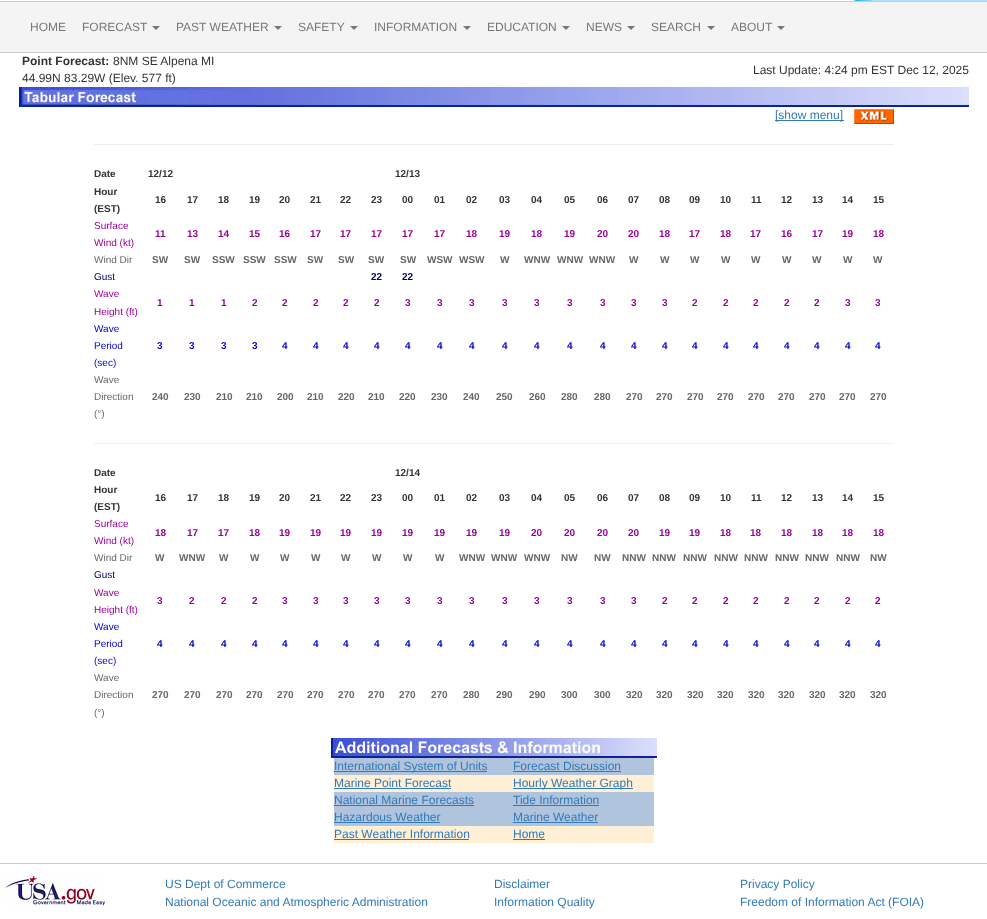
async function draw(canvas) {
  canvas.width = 987
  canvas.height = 919
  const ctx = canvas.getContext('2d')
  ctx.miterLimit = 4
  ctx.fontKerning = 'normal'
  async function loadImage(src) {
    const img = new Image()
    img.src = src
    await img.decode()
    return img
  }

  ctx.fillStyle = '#fff'
  ctx.fillRect(0, 0, 987, 919)
  ctx.drawImage(await loadImage('image0.png'), 852, 0, 135, 1)
  ctx.fillStyle = '#f4f4f4'
  ctx.fillRect(0, 2, 987, 50)
  ctx.fillStyle = '#ccc'
  ctx.fillRect(0, 1, 987, 1)
  ctx.fillRect(0, 52, 987, 1)
  ctx.font = '12px Liberation Sans'
  ctx.fillStyle = '#777'
  ctx.fillText('HOME', 30, 31)
  ctx.fillText('FORECAST', 82, 31)
  ctx.beginPath()
  ctx.moveTo(152, 26)
  ctx.lineTo(160, 26)
  ctx.lineTo(156, 30)
  ctx.closePath()
  ctx.fill()
  ctx.fillText('PAST WEATHER', 176, 31)
  ctx.beginPath()
  ctx.moveTo(274, 26)
  ctx.lineTo(282, 26)
  ctx.lineTo(278, 30)
  ctx.closePath()
  ctx.fill()
  ctx.fillText('SAFETY', 298, 31)
  ctx.beginPath()
  ctx.moveTo(350, 26)
  ctx.lineTo(358, 26)
  ctx.lineTo(354, 30)
  ctx.closePath()
  ctx.fill()
  ctx.fillText('INFORMATION', 374, 31)
  ctx.beginPath()
  ctx.moveTo(463, 26)
  ctx.lineTo(471, 26)
  ctx.lineTo(467, 30)
  ctx.closePath()
  ctx.fill()
  ctx.fillText('EDUCATION', 487, 31)
  ctx.beginPath()
  ctx.moveTo(562, 26)
  ctx.lineTo(570, 26)
  ctx.lineTo(566, 30)
  ctx.closePath()
  ctx.fill()
  ctx.fillText('NEWS', 586, 31)
  ctx.beginPath()
  ctx.moveTo(627, 26)
  ctx.lineTo(635, 26)
  ctx.lineTo(631, 30)
  ctx.closePath()
  ctx.fill()
  ctx.fillText('SEARCH', 651, 31)
  ctx.beginPath()
  ctx.moveTo(707, 26)
  ctx.lineTo(715, 26)
  ctx.lineTo(711, 30)
  ctx.closePath()
  ctx.fill()
  ctx.fillText('ABOUT', 731, 31)
  ctx.beginPath()
  ctx.moveTo(777, 26)
  ctx.lineTo(785, 26)
  ctx.lineTo(781, 30)
  ctx.closePath()
  ctx.fill()
  ctx.font = 'bold 12px Liberation Sans'
  ctx.fillStyle = '#333'
  ctx.fillText('Point Forecast:', 22, 65)
  ctx.font = '12px Liberation Sans'
  ctx.fillText('8NM SE Alpena MI', 113, 65)
  ctx.fillText('44.99N 83.29W (Elev. 577 ft)', 22, 82)
  ctx.fillText('Last Update: 4:24 pm EST Dec 12, 2025', 753, 74)
  ctx.drawImage(await loadImage('image1.png'), 19, 87, 950, 20)
  ctx.fillStyle = '#337ab7'
  ctx.fillRect(775, 120, 69, 1)
  ctx.fillText('[show menu]', 775, 119)
  ctx.drawImage(await loadImage('image2.png'), 854, 109, 40, 15)
  ctx.fillStyle = '#eee'
  ctx.fillRect(94, 144, 800, 1)
  ctx.font = 'bold 10px Liberation Sans'
  ctx.fillStyle = '#333'
  ctx.fillText('Date', 94, 177)
  ctx.fillText('12/12', 148, 177)
  ctx.fillText('12/13', 395, 177)
  ctx.fillText('Hour', 94, 195)
  ctx.fillText('(EST)', 94, 212)
  ctx.fillText('16', 155, 203)
  ctx.fillText('17', 187, 203)
  ctx.fillText('18', 218, 203)
  ctx.fillText('19', 249, 203)
  ctx.fillText('20', 279, 203)
  ctx.fillText('21', 310, 203)
  ctx.fillText('22', 340, 203)
  ctx.fillText('23', 371, 203)
  ctx.fillText('00', 402, 203)
  ctx.fillText('01', 434, 203)
  ctx.fillText('02', 466, 203)
  ctx.fillText('03', 499, 203)
  ctx.fillText('04', 531, 203)
  ctx.fillText('05', 564, 203)
  ctx.fillText('06', 597, 203)
  ctx.fillText('07', 628, 203)
  ctx.fillText('08', 659, 203)
  ctx.fillText('09', 689, 203)
  ctx.fillText('10', 720, 203)
  ctx.fillText('11', 751, 203)
  ctx.fillText('12', 781, 203)
  ctx.fillText('13', 812, 203)
  ctx.fillText('14', 842, 203)
  ctx.fillText('15', 873, 203)
  ctx.font = '10px Liberation Sans'
  ctx.fillStyle = '#909'
  ctx.fillText('Surface', 94, 229)
  ctx.fillText('Wind (kt)', 94, 246)
  ctx.font = 'bold 10px Liberation Sans'
  ctx.fillText('11', 155, 237)
  ctx.fillText('13', 187, 237)
  ctx.fillText('14', 218, 237)
  ctx.fillText('15', 249, 237)
  ctx.fillText('16', 279, 237)
  ctx.fillText('17', 310, 237)
  ctx.fillText('17', 340, 237)
  ctx.fillText('17', 371, 237)
  ctx.fillText('17', 402, 237)
  ctx.fillText('17', 434, 237)
  ctx.fillText('18', 466, 237)
  ctx.fillText('19', 499, 237)
  ctx.fillText('18', 531, 237)
  ctx.fillText('19', 564, 237)
  ctx.fillText('20', 597, 237)
  ctx.fillText('20', 628, 237)
  ctx.fillText('18', 659, 237)
  ctx.fillText('17', 689, 237)
  ctx.fillText('18', 720, 237)
  ctx.fillText('17', 750, 237)
  ctx.fillText('16', 781, 237)
  ctx.fillText('17', 812, 237)
  ctx.fillText('19', 842, 237)
  ctx.fillText('18', 873, 237)
  ctx.font = '10px Liberation Sans'
  ctx.fillStyle = '#666'
  ctx.fillText('Wind Dir', 94, 263)
  ctx.font = 'bold 10px Liberation Sans'
  ctx.fillText('SW', 152, 263)
  ctx.fillText('SW', 184, 263)
  ctx.fillText('SSW', 212, 263)
  ctx.fillText('SSW', 243, 263)
  ctx.fillText('SSW', 274, 263)
  ctx.fillText('SW', 307, 263)
  ctx.fillText('SW', 338, 263)
  ctx.fillText('SW', 368, 263)
  ctx.fillText('SW', 400, 263)
  ctx.fillText('WSW', 427, 263)
  ctx.fillText('WSW', 459, 263)
  ctx.fillText('W', 500, 263)
  ctx.fillText('WNW', 524, 263)
  ctx.fillText('WNW', 557, 263)
  ctx.fillText('WNW', 589, 263)
  ctx.fillText('W', 629, 263)
  ctx.fillText('W', 660, 263)
  ctx.fillText('W', 690, 263)
  ctx.fillText('W', 721, 263)
  ctx.fillText('W', 751, 263)
  ctx.fillText('W', 782, 263)
  ctx.fillText('W', 812, 263)
  ctx.fillText('W', 843, 263)
  ctx.fillText('W', 873, 263)
  ctx.font = '10px Liberation Sans'
  ctx.fillStyle = '#006'
  ctx.fillText('Gust', 94, 280)
  ctx.font = 'bold 10px Liberation Sans'
  ctx.fillText('22', 371, 280)
  ctx.fillText('22', 402, 280)
  ctx.font = '10px Liberation Sans'
  ctx.fillStyle = '#909'
  ctx.fillText('Wave', 94, 297)
  ctx.fillText('Height (ft)', 94, 315)
  ctx.font = 'bold 10px Liberation Sans'
  ctx.fillText('1', 157, 306)
  ctx.fillText('1', 189, 306)
  ctx.fillText('1', 221, 306)
  ctx.fillText('2', 252, 306)
  ctx.fillText('2', 282, 306)
  ctx.fillText('2', 313, 306)
  ctx.fillText('2', 343, 306)
  ctx.fillText('2', 374, 306)
  ctx.fillText('3', 405, 306)
  ctx.fillText('3', 437, 306)
  ctx.fillText('3', 469, 306)
  ctx.fillText('3', 502, 306)
  ctx.fillText('3', 534, 306)
  ctx.fillText('3', 567, 306)
  ctx.fillText('3', 600, 306)
  ctx.fillText('3', 631, 306)
  ctx.fillText('3', 662, 306)
  ctx.fillText('2', 692, 306)
  ctx.fillText('2', 723, 306)
  ctx.fillText('2', 753, 306)
  ctx.fillText('2', 784, 306)
  ctx.fillText('2', 814, 306)
  ctx.fillText('3', 845, 306)
  ctx.fillText('3', 875, 306)
  ctx.font = '10px Liberation Sans'
  ctx.fillStyle = '#00c'
  ctx.fillText('Wave', 94, 332)
  ctx.fillText('Period', 94, 349)
  ctx.fillText('(sec)', 94, 366)
  ctx.font = 'bold 10px Liberation Sans'
  ctx.fillText('3', 157, 349)
  ctx.fillText('3', 189, 349)
  ctx.fillText('3', 221, 349)
  ctx.fillText('3', 252, 349)
  ctx.fillText('4', 282, 349)
  ctx.fillText('4', 313, 349)
  ctx.fillText('4', 343, 349)
  ctx.fillText('4', 374, 349)
  ctx.fillText('4', 405, 349)
  ctx.fillText('4', 437, 349)
  ctx.fillText('4', 469, 349)
  ctx.fillText('4', 502, 349)
  ctx.fillText('4', 534, 349)
  ctx.fillText('4', 567, 349)
  ctx.fillText('4', 600, 349)
  ctx.fillText('4', 631, 349)
  ctx.fillText('4', 662, 349)
  ctx.fillText('4', 692, 349)
  ctx.fillText('4', 723, 349)
  ctx.fillText('4', 753, 349)
  ctx.fillText('4', 784, 349)
  ctx.fillText('4', 814, 349)
  ctx.fillText('4', 845, 349)
  ctx.fillText('4', 875, 349)
  ctx.font = '10px Liberation Sans'
  ctx.fillStyle = '#666'
  ctx.fillText('Wave', 94, 383)
  ctx.fillText('Direction', 94, 400)
  ctx.fillText('(°)', 94, 417)
  ctx.font = 'bold 10px Liberation Sans'
  ctx.fillText('240', 152, 400)
  ctx.fillText('230', 184, 400)
  ctx.fillText('210', 216, 400)
  ctx.fillText('210', 246, 400)
  ctx.fillText('200', 277, 400)
  ctx.fillText('210', 307, 400)
  ctx.fillText('220', 338, 400)
  ctx.fillText('210', 368, 400)
  ctx.fillText('220', 399, 400)
  ctx.fillText('230', 431, 400)
  ctx.fillText('240', 463, 400)
  ctx.fillText('250', 496, 400)
  ctx.fillText('260', 529, 400)
  ctx.fillText('280', 561, 400)
  ctx.fillText('280', 594, 400)
  ctx.fillText('270', 626, 400)
  ctx.fillText('270', 656, 400)
  ctx.fillText('270', 687, 400)
  ctx.fillText('270', 717, 400)
  ctx.fillText('270', 748, 400)
  ctx.fillText('270', 778, 400)
  ctx.fillText('270', 809, 400)
  ctx.fillText('270', 839, 400)
  ctx.fillText('270', 870, 400)
  ctx.fillStyle = '#eee'
  ctx.fillRect(94, 443, 800, 1)
  ctx.fillStyle = '#333'
  ctx.fillText('Date', 94, 476)
  ctx.fillText('12/14', 395, 476)
  ctx.fillText('Hour', 94, 493)
  ctx.fillText('(EST)', 94, 510)
  ctx.fillText('16', 155, 501)
  ctx.fillText('17', 187, 501)
  ctx.fillText('18', 218, 501)
  ctx.fillText('19', 249, 501)
  ctx.fillText('20', 279, 501)
  ctx.fillText('21', 310, 501)
  ctx.fillText('22', 340, 501)
  ctx.fillText('23', 371, 501)
  ctx.fillText('00', 402, 501)
  ctx.fillText('01', 434, 501)
  ctx.fillText('02', 466, 501)
  ctx.fillText('03', 499, 501)
  ctx.fillText('04', 531, 501)
  ctx.fillText('05', 564, 501)
  ctx.fillText('06', 597, 501)
  ctx.fillText('07', 628, 501)
  ctx.fillText('08', 659, 501)
  ctx.fillText('09', 689, 501)
  ctx.fillText('10', 720, 501)
  ctx.fillText('11', 751, 501)
  ctx.fillText('12', 781, 501)
  ctx.fillText('13', 812, 501)
  ctx.fillText('14', 842, 501)
  ctx.fillText('15', 873, 501)
  ctx.font = '10px Liberation Sans'
  ctx.fillStyle = '#909'
  ctx.fillText('Surface', 94, 527)
  ctx.fillText('Wind (kt)', 94, 544)
  ctx.font = 'bold 10px Liberation Sans'
  ctx.fillText('18', 155, 536)
  ctx.fillText('17', 187, 536)
  ctx.fillText('17', 218, 536)
  ctx.fillText('18', 249, 536)
  ctx.fillText('19', 279, 536)
  ctx.fillText('19', 310, 536)
  ctx.fillText('19', 340, 536)
  ctx.fillText('19', 371, 536)
  ctx.fillText('19', 402, 536)
  ctx.fillText('19', 434, 536)
  ctx.fillText('19', 466, 536)
  ctx.fillText('19', 499, 536)
  ctx.fillText('20', 531, 536)
  ctx.fillText('20', 564, 536)
  ctx.fillText('20', 597, 536)
  ctx.fillText('20', 628, 536)
  ctx.fillText('19', 659, 536)
  ctx.fillText('19', 689, 536)
  ctx.fillText('18', 720, 536)
  ctx.fillText('18', 750, 536)
  ctx.fillText('18', 781, 536)
  ctx.fillText('18', 812, 536)
  ctx.fillText('18', 842, 536)
  ctx.fillText('18', 873, 536)
  ctx.font = '10px Liberation Sans'
  ctx.fillStyle = '#666'
  ctx.fillText('Wind Dir', 94, 561)
  ctx.font = 'bold 10px Liberation Sans'
  ctx.fillText('W', 155, 561)
  ctx.fillText('WNW', 179, 561)
  ctx.fillText('W', 219, 561)
  ctx.fillText('W', 250, 561)
  ctx.fillText('W', 280, 561)
  ctx.fillText('W', 311, 561)
  ctx.fillText('W', 341, 561)
  ctx.fillText('W', 372, 561)
  ctx.fillText('W', 403, 561)
  ctx.fillText('W', 435, 561)
  ctx.fillText('WNW', 459, 561)
  ctx.fillText('WNW', 491, 561)
  ctx.fillText('WNW', 524, 561)
  ctx.fillText('NW', 561, 561)
  ctx.fillText('NW', 594, 561)
  ctx.fillText('NNW', 622, 561)
  ctx.fillText('NNW', 652, 561)
  ctx.fillText('NNW', 683, 561)
  ctx.fillText('NNW', 714, 561)
  ctx.fillText('NNW', 744, 561)
  ctx.fillText('NNW', 775, 561)
  ctx.fillText('NNW', 805, 561)
  ctx.fillText('NNW', 836, 561)
  ctx.fillText('NW', 870, 561)
  ctx.font = '10px Liberation Sans'
  ctx.fillStyle = '#006'
  ctx.fillText('Gust', 94, 578)
  ctx.fillStyle = '#909'
  ctx.fillText('Wave', 94, 596)
  ctx.fillText('Height (ft)', 94, 613)
  ctx.font = 'bold 10px Liberation Sans'
  ctx.fillText('3', 157, 604)
  ctx.fillText('2', 189, 604)
  ctx.fillText('2', 221, 604)
  ctx.fillText('2', 252, 604)
  ctx.fillText('3', 282, 604)
  ctx.fillText('3', 313, 604)
  ctx.fillText('3', 343, 604)
  ctx.fillText('3', 374, 604)
  ctx.fillText('3', 405, 604)
  ctx.fillText('3', 437, 604)
  ctx.fillText('3', 469, 604)
  ctx.fillText('3', 502, 604)
  ctx.fillText('3', 534, 604)
  ctx.fillText('3', 567, 604)
  ctx.fillText('3', 600, 604)
  ctx.fillText('3', 631, 604)
  ctx.fillText('2', 662, 604)
  ctx.fillText('2', 692, 604)
  ctx.fillText('2', 723, 604)
  ctx.fillText('2', 753, 604)
  ctx.fillText('2', 784, 604)
  ctx.fillText('2', 814, 604)
  ctx.fillText('2', 845, 604)
  ctx.fillText('2', 875, 604)
  ctx.font = '10px Liberation Sans'
  ctx.fillStyle = '#00c'
  ctx.fillText('Wave', 94, 630)
  ctx.fillText('Period', 94, 647)
  ctx.fillText('(sec)', 94, 664)
  ctx.font = 'bold 10px Liberation Sans'
  ctx.fillText('4', 157, 647)
  ctx.fillText('4', 189, 647)
  ctx.fillText('4', 221, 647)
  ctx.fillText('4', 252, 647)
  ctx.fillText('4', 282, 647)
  ctx.fillText('4', 313, 647)
  ctx.fillText('4', 343, 647)
  ctx.fillText('4', 374, 647)
  ctx.fillText('4', 405, 647)
  ctx.fillText('4', 437, 647)
  ctx.fillText('4', 469, 647)
  ctx.fillText('4', 502, 647)
  ctx.fillText('4', 534, 647)
  ctx.fillText('4', 567, 647)
  ctx.fillText('4', 600, 647)
  ctx.fillText('4', 631, 647)
  ctx.fillText('4', 662, 647)
  ctx.fillText('4', 692, 647)
  ctx.fillText('4', 723, 647)
  ctx.fillText('4', 753, 647)
  ctx.fillText('4', 784, 647)
  ctx.fillText('4', 814, 647)
  ctx.fillText('4', 845, 647)
  ctx.fillText('4', 875, 647)
  ctx.font = '10px Liberation Sans'
  ctx.fillStyle = '#666'
  ctx.fillText('Wave', 94, 681)
  ctx.fillText('Direction', 94, 698)
  ctx.fillText('(°)', 94, 716)
  ctx.font = 'bold 10px Liberation Sans'
  ctx.fillText('270', 152, 698)
  ctx.fillText('270', 184, 698)
  ctx.fillText('270', 216, 698)
  ctx.fillText('270', 246, 698)
  ctx.fillText('270', 277, 698)
  ctx.fillText('270', 307, 698)
  ctx.fillText('270', 338, 698)
  ctx.fillText('270', 368, 698)
  ctx.fillText('270', 399, 698)
  ctx.fillText('270', 431, 698)
  ctx.fillText('280', 463, 698)
  ctx.fillText('290', 496, 698)
  ctx.fillText('290', 529, 698)
  ctx.fillText('300', 561, 698)
  ctx.fillText('300', 594, 698)
  ctx.fillText('320', 626, 698)
  ctx.fillText('320', 656, 698)
  ctx.fillText('320', 687, 698)
  ctx.fillText('320', 717, 698)
  ctx.fillText('320', 748, 698)
  ctx.fillText('320', 778, 698)
  ctx.fillText('320', 809, 698)
  ctx.fillText('320', 839, 698)
  ctx.fillText('320', 870, 698)
  ctx.drawImage(await loadImage('image3.png'), 331, 738, 326, 20)
  ctx.fillStyle = '#b0c4de'
  ctx.fillRect(334, 758, 320, 17)
  ctx.fillStyle = '#337ab7'
  ctx.fillRect(334, 771, 153, 1)
  ctx.font = '12px Liberation Sans'
  ctx.fillText('International System of Units', 334, 770)
  ctx.fillText('Forecast Discussion', 513, 770)
  ctx.fillRect(513, 771, 108, 1)
  ctx.fillStyle = '#ffefd5'
  ctx.fillRect(334, 775, 320, 17)
  ctx.fillStyle = '#337ab7'
  ctx.fillText('Marine Point Forecast', 334, 787)
  ctx.fillRect(334, 788, 117, 1)
  ctx.fillRect(513, 788, 120, 1)
  ctx.fillText('Hourly Weather Graph', 513, 787)
  ctx.fillStyle = '#b0c4de'
  ctx.fillRect(334, 792, 320, 34)
  ctx.fillStyle = '#337ab7'
  ctx.fillText('National Marine Forecasts', 334, 804)
  ctx.fillRect(334, 805, 140, 1)
  ctx.fillText('Tide Information', 513, 804)
  ctx.fillRect(513, 805, 86, 1)
  ctx.fillText('Hazardous Weather', 334, 821)
  ctx.fillRect(334, 822, 106, 1)
  ctx.fillText('Marine Weather', 513, 821)
  ctx.fillRect(513, 822, 85, 1)
  ctx.fillStyle = '#ffefd5'
  ctx.fillRect(334, 826, 320, 17)
  ctx.fillStyle = '#337ab7'
  ctx.fillText('Past Weather Information', 334, 838)
  ctx.fillRect(334, 839, 135, 1)
  ctx.fillText('Home', 513, 838)
  ctx.fillRect(513, 839, 32, 1)
  ctx.fillStyle = '#ccc'
  ctx.fillRect(0, 863, 987, 1)
  ctx.drawImage(await loadImage('image4.png'), 5, 876, 100, 30)
  ctx.fillStyle = '#337ab7'
  ctx.fillText('US Dept of Commerce', 165, 888)
  ctx.fillText('National Oceanic and Atmospheric Administration', 165, 906)
  ctx.fillText('Disclaimer', 494, 888)
  ctx.fillText('Information Quality', 494, 906)
  ctx.fillText('Privacy Policy', 740, 888)
  ctx.fillText('Freedom of Information Act (FOIA)', 740, 906)
}

draw(document.querySelector('canvas'))
